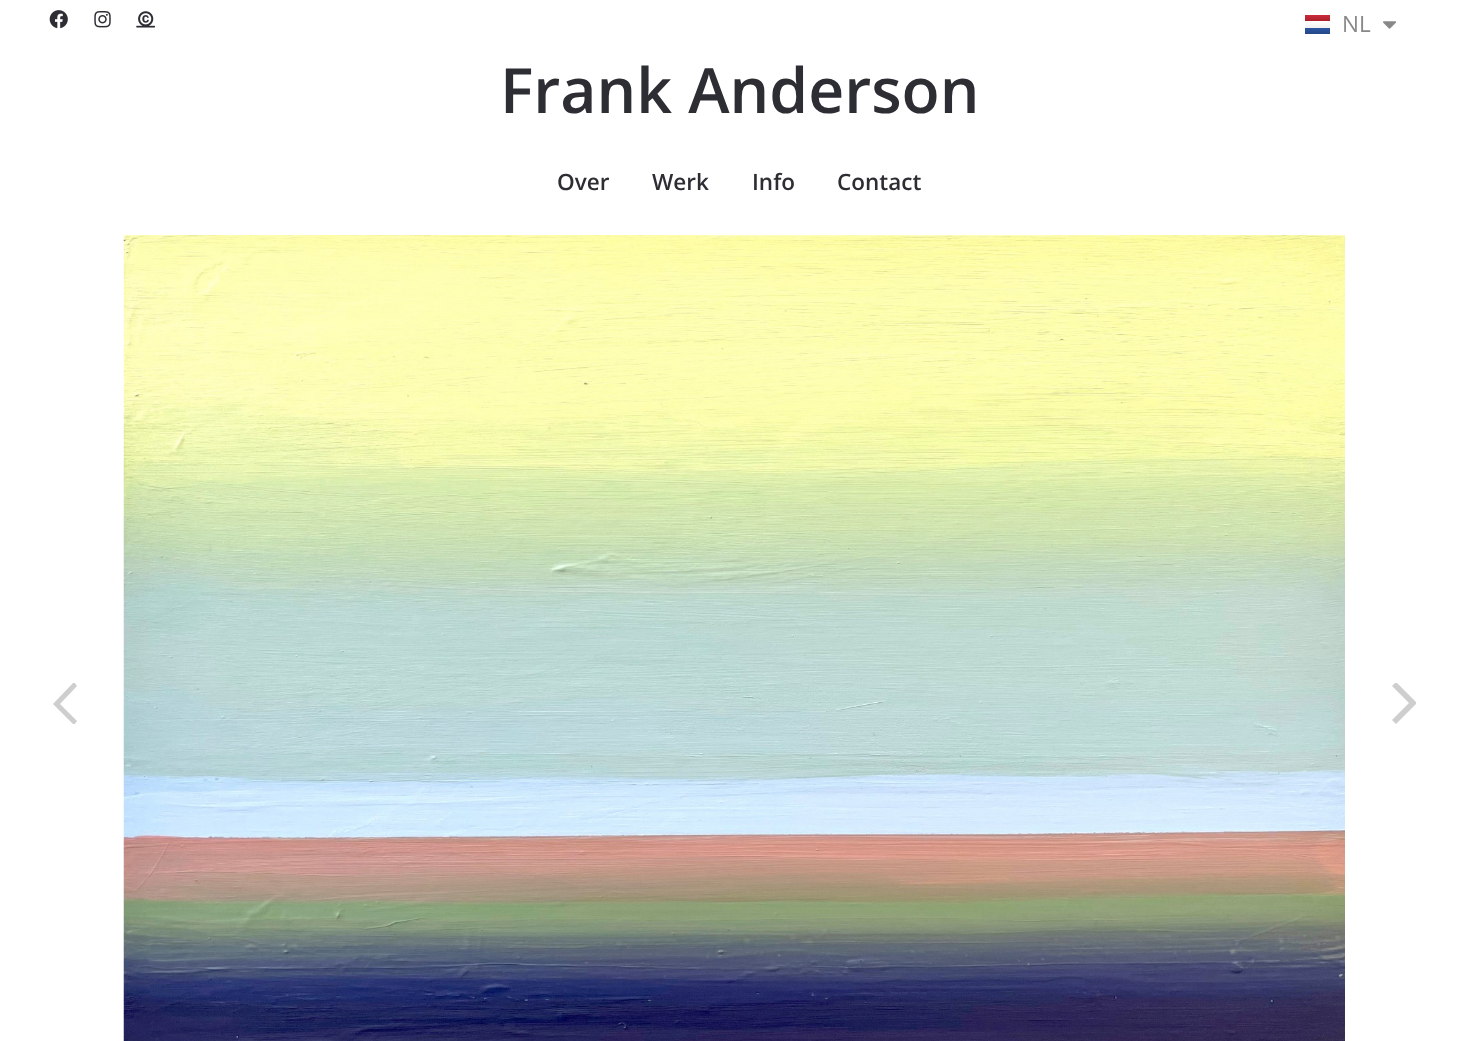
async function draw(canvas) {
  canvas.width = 1478
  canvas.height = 1041
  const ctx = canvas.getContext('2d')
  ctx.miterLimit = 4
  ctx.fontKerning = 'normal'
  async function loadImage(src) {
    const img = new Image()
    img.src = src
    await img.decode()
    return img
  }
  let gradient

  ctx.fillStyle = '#fff'
  ctx.fillRect(0, 0, 1478, 1041)
  ctx.drawImage(await loadImage('image0.png'), 49, 10, 19, 19)
  ctx.drawImage(await loadImage('image1.png'), 94, 11, 17, 17)
  ctx.drawImage(await loadImage('image2.png'), 136, 11, 19, 17)
  gradient = ctx.createLinearGradient(1317, 15, 1317, 21)
  gradient.addColorStop(0, '#ca2b39')
  gradient.addColorStop(1, '#ac1f2c')
  ctx.fillStyle = gradient
  ctx.fillRect(1305, 15, 25, 6)
  gradient = ctx.createLinearGradient(1317, 28, 1317, 34)
  gradient.addColorStop(0, '#2c56a2')
  gradient.addColorStop(1, '#244889')
  ctx.fillStyle = gradient
  ctx.fillRect(1305, 28, 25, 6)
  gradient = ctx.createLinearGradient(1317, 21, 1317, 28)
  gradient.addColorStop(0, '#fff')
  gradient.addColorStop(1, '#f0f0f0')
  ctx.fillStyle = gradient
  ctx.fillRect(1305, 22, 25, 6)
  ctx.font = '22.5px Open Sans'
  ctx.fillStyle = '#888'
  ctx.fillText('NL', 1342, 32)
  ctx.drawImage(await loadImage('image3.png'), 1383, 21, 13, 8)
  ctx.font = '600 62.5px Open Sans'
  ctx.fillStyle = '#2d2e34'
  ctx.fillText('Frank Anderson', 500, 113)
  ctx.font = '600 22.5px Open Sans'
  ctx.fillText('Over', 557, 190)
  ctx.fillText('Werk', 652, 190)
  ctx.fillText('Info', 752, 190)
  ctx.fillText('Contact', 837, 190)
  ctx.save()
  ctx.beginPath()
  ctx.rect(53, 683, 25, 41)
  ctx.clip()
  ctx.fillStyle = '#cecece'
  ctx.beginPath()
  ctx.moveTo(60, 704)
  ctx.lineTo(77, 721)
  ctx.lineTo(74, 725)
  ctx.lineTo(53, 704)
  ctx.lineTo(74, 682)
  ctx.lineTo(77, 686)
  ctx.closePath()
  ctx.fill()
  ctx.restore()
  ctx.drawImage(await loadImage('image4.png'), 123, 235, 1222, 806)
  ctx.save()
  ctx.beginPath()
  ctx.rect(1391, 683, 25, 41)
  ctx.clip()
  ctx.fillStyle = '#cecece'
  ctx.beginPath()
  ctx.moveTo(1409, 703)
  ctx.lineTo(1392, 686)
  ctx.lineTo(1396, 682)
  ctx.lineTo(1417, 703)
  ctx.lineTo(1396, 724)
  ctx.lineTo(1392, 720)
  ctx.closePath()
  ctx.fill()
  ctx.restore()
}

draw(document.querySelector('canvas'))
